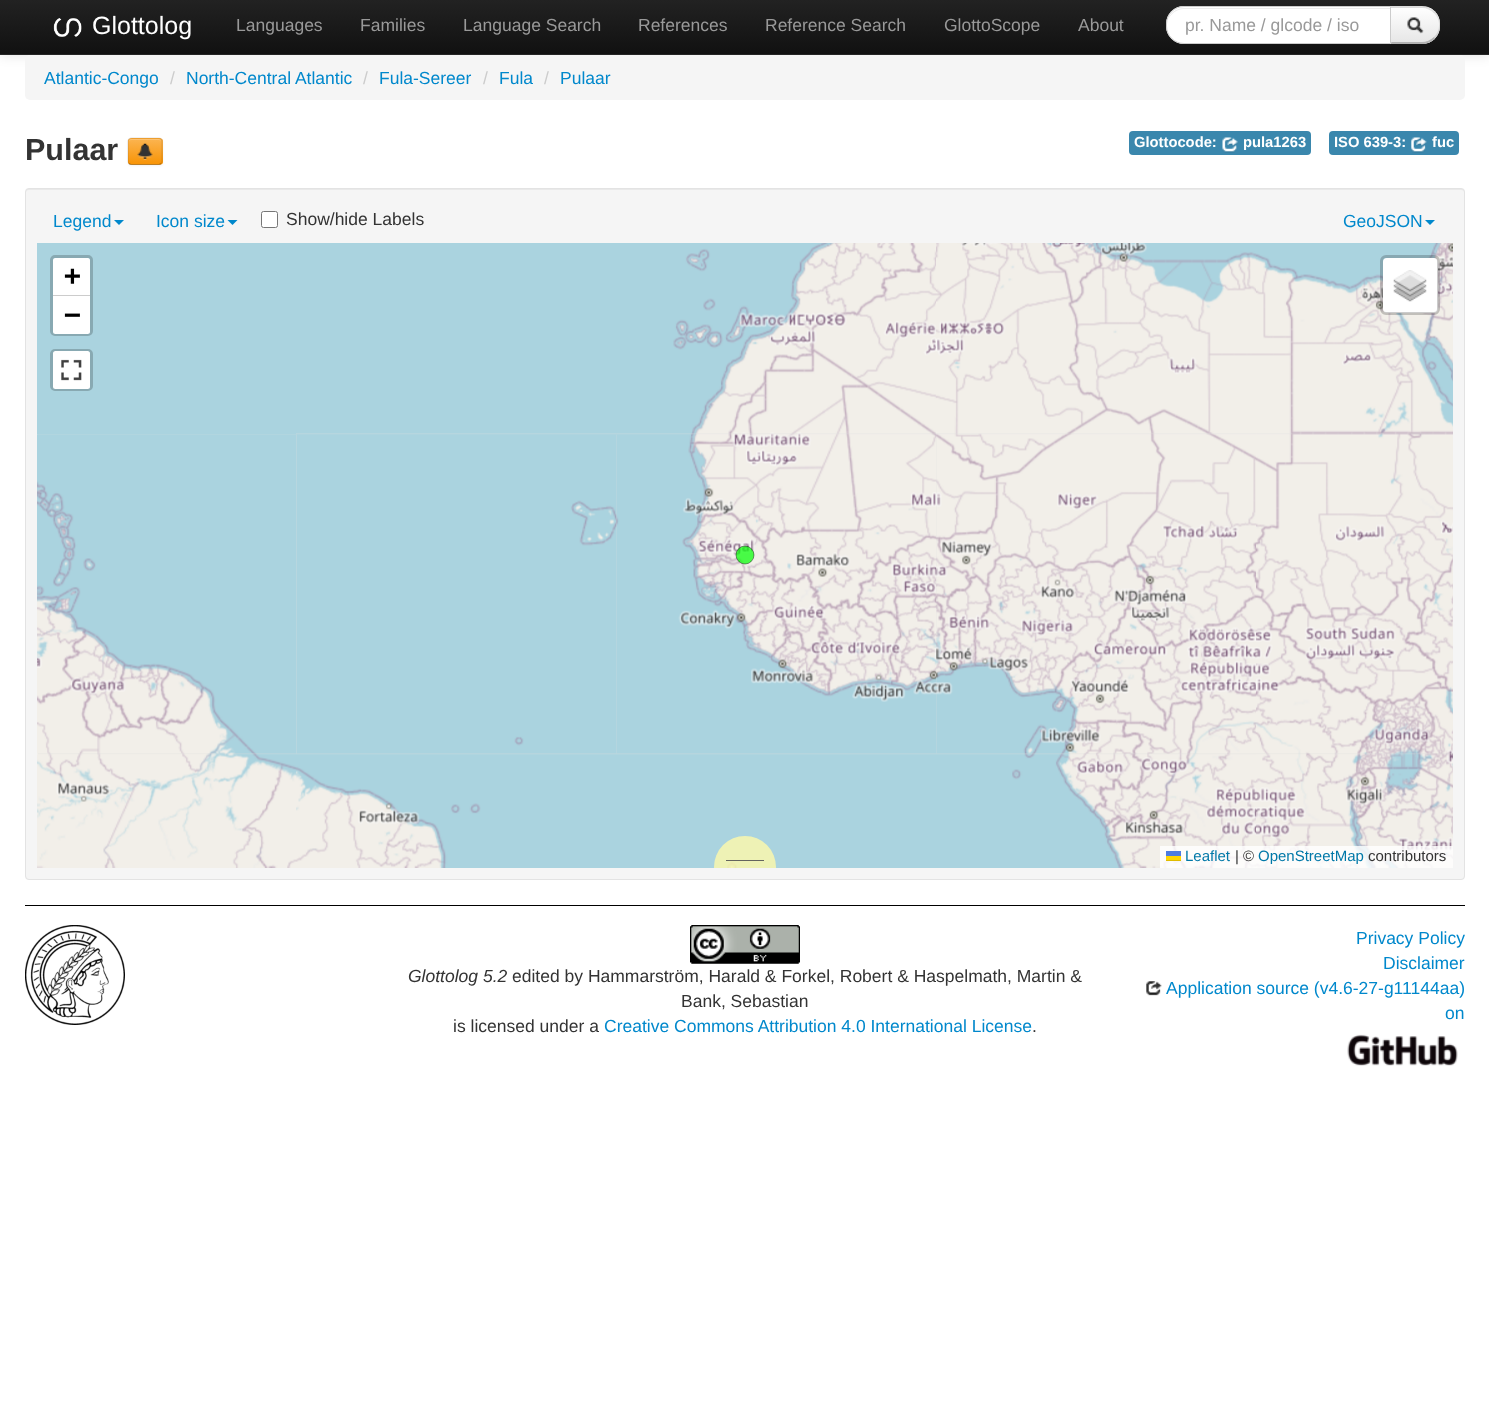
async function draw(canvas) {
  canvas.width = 1489
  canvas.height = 1407
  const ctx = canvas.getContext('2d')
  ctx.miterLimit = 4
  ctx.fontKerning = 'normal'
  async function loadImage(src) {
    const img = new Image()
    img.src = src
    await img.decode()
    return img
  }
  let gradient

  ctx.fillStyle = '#fff'
  ctx.fillRect(0, 0, 1489, 1407)
  ctx.fillStyle = '#0000001a'
  ctx.filter = 'blur(6px)'
  ctx.beginPath()
  ctx.rect(0, 1, 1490, 55)
  ctx.fill()
  ctx.filter = 'none'
  gradient = ctx.createLinearGradient(745, 0, 745, 54)
  gradient.addColorStop(0, '#222')
  gradient.addColorStop(1, '#111')
  ctx.fillStyle = gradient
  ctx.fillRect(0, 0, 1489, 54)
  ctx.fillStyle = '#252525'
  ctx.fillRect(0, 54, 1489, 1)
  ctx.drawImage(await loadImage('image0.png'), 53, 18, 29, 19)
  ctx.font = '25px Liberation Sans'
  ctx.fillStyle = '#fff'
  ctx.fillText('Glottolog', 92, 34)
  ctx.font = '17.5px Liberation Sans'
  ctx.fillStyle = '#999'
  ctx.fillText('Languages', 236, 31)
  ctx.fillText('Families', 360, 31)
  ctx.fillText('Language Search', 463, 31)
  ctx.fillText('References', 638, 31)
  ctx.fillText('Reference Search', 765, 31)
  ctx.fillText('GlottoScope', 944, 31)
  ctx.fillText('About', 1078, 31)
  ctx.fillStyle = '#f5f5f5'
  ctx.beginPath()
  ctx.roundRect(1390, 6, 50, 38, [0, 18, 18, 0])
  ctx.fill()
  ctx.save()
  ctx.beginPath()
  ctx.roundRect(1390, 6, 50, 38, [0, 18, 18, 0])
  ctx.clip()
  gradient = ctx.createLinearGradient(1415, 7.5, 1415, 43)
  gradient.addColorStop(0, '#fff')
  gradient.addColorStop(1, '#e6e6e6')
  ctx.fillStyle = gradient
  ctx.fillRect(1391, 8, 49, 35)
  ctx.restore()
  ctx.fillStyle = '#0000001a'
  ctx.beginPath()
  ctx.moveTo(1390, 6)
  ctx.lineTo(1425, 6)
  ctx.bezierCurveTo(1429, 7, 1432, 9, 1435, 11)
  ctx.lineTo(1434, 13)
  ctx.bezierCurveTo(1431, 10, 1426, 8, 1422, 8)
  ctx.lineTo(1392, 8)
  ctx.closePath()
  ctx.fill()
  ctx.beginPath()
  ctx.moveTo(1440, 26)
  ctx.bezierCurveTo(1440, 20.5, 1439, 15.5, 1435, 11.5)
  ctx.lineTo(1433.5, 12.5)
  ctx.bezierCurveTo(1441, 19, 1441, 31, 1433.5, 37.5)
  ctx.lineTo(1435, 38.5)
  ctx.bezierCurveTo(1438, 35.5, 1440, 31, 1440, 26)
  ctx.closePath()
  ctx.fill()
  ctx.fillStyle = '#b3b3b3'
  ctx.beginPath()
  ctx.moveTo(1425, 44)
  ctx.lineTo(1390, 44)
  ctx.lineTo(1392, 42)
  ctx.lineTo(1422, 42)
  ctx.bezierCurveTo(1426, 42, 1431, 40, 1434, 37)
  ctx.lineTo(1435, 39)
  ctx.bezierCurveTo(1432, 41, 1429, 43, 1425, 44)
  ctx.closePath()
  ctx.fill()
  ctx.fillStyle = '#0000001a'
  ctx.beginPath()
  ctx.moveTo(1391, 8)
  ctx.lineTo(1392, 8)
  ctx.lineTo(1390, 6)
  ctx.lineTo(1390, 44)
  ctx.lineTo(1392, 42)
  ctx.lineTo(1391, 42)
  ctx.closePath()
  ctx.fill()
  ctx.fillStyle = '#fff'
  ctx.beginPath()
  ctx.roundRect(1166, 6, 225, 38, [18, 0, 0, 18])
  ctx.fill()
  ctx.fillStyle = '#ececec'
  ctx.beginPath()
  ctx.moveTo(1184, 9)
  ctx.lineTo(1390, 9)
  ctx.lineTo(1390, 8)
  ctx.lineTo(1184, 8)
  ctx.bezierCurveTo(1176, 8, 1170, 13, 1168, 20)
  ctx.bezierCurveTo(1171, 14, 1176, 9, 1184, 9)
  ctx.closePath()
  ctx.fill()
  ctx.beginPath()
  ctx.roundRect(1166.5, 6.5, 224, 37, [17.5, 0, 0, 17.5])
  ctx.strokeStyle = '#ccc'
  ctx.stroke()
  ctx.fillStyle = '#999'
  ctx.fillText('pr. Name / glcode / iso', 1185, 31)
  ctx.drawImage(await loadImage('image1.png'), 1407, 17, 17, 17)
  ctx.fillStyle = '#f5f5f5'
  ctx.beginPath()
  ctx.roundRect(25, 55, 1440, 45, 5)
  ctx.fill()
  ctx.fillStyle = '#08c'
  ctx.fillText('Atlantic-Congo', 44, 84)
  ctx.fillStyle = '#ccc'
  ctx.fillText('/', 170, 84)
  ctx.fillStyle = '#08c'
  ctx.fillText('North-Central Atlantic', 186, 84)
  ctx.fillStyle = '#ccc'
  ctx.fillText('/', 363, 84)
  ctx.fillStyle = '#08c'
  ctx.fillText('Fula-Sereer', 379, 84)
  ctx.fillStyle = '#ccc'
  ctx.fillText('/', 483, 84)
  ctx.fillStyle = '#08c'
  ctx.fillText('Fula', 499, 84)
  ctx.fillStyle = '#ccc'
  ctx.fillText('/', 544, 84)
  ctx.fillStyle = '#08c'
  ctx.fillText('Pulaar', 560, 84)
  ctx.font = 'bold 30.5px Liberation Sans'
  ctx.fillStyle = '#333'
  ctx.fillText('Pulaar', 25, 160)
  ctx.fillStyle = '#0000000d'
  ctx.filter = 'blur(1px)'
  ctx.beginPath()
  ctx.roundRect(128, 139, 35, 27, 4)
  ctx.fill()
  ctx.filter = 'none'
  ctx.fillStyle = '#faa732'
  ctx.beginPath()
  ctx.roundRect(128, 138, 35, 27, 4)
  ctx.fill()
  ctx.save()
  ctx.beginPath()
  ctx.roundRect(128, 138, 35, 27, 4)
  ctx.clip()
  gradient = ctx.createLinearGradient(145, 139, 145, 164)
  gradient.addColorStop(0, '#fbb450')
  gradient.addColorStop(1, '#f89406')
  ctx.fillStyle = gradient
  ctx.fillRect(128, 139, 35, 25)
  ctx.restore()
  ctx.fillStyle = '#fcc272'
  ctx.beginPath()
  ctx.moveTo(131, 140)
  ctx.lineTo(159, 140)
  ctx.bezierCurveTo(160, 140, 161, 141, 161, 142)
  ctx.bezierCurveTo(161, 138, 157, 139, 154, 139)
  ctx.lineTo(136, 139)
  ctx.bezierCurveTo(133, 139, 129, 138, 129, 142)
  ctx.bezierCurveTo(129, 141, 130, 140, 131, 140)
  ctx.closePath()
  ctx.fill()
  ctx.beginPath()
  ctx.moveTo(161, 163.5)
  ctx.bezierCurveTo(160.5, 164, 159.5, 164.5, 159, 164.5)
  ctx.lineTo(131, 164.5)
  ctx.bezierCurveTo(130.5, 164.5, 129.5, 164, 129, 163.5)
  ctx.strokeStyle = '#00000040'
  ctx.lineWidth = 1.2
  ctx.stroke()
  ctx.beginPath()
  ctx.moveTo(129, 163.5)
  ctx.bezierCurveTo(128.5, 163, 128, 162, 128, 161)
  ctx.lineTo(128, 141)
  ctx.bezierCurveTo(128, 140.5, 128.5, 139.5, 129, 139)
  ctx.bezierCurveTo(129.5, 138.5, 130.5, 138, 131, 138)
  ctx.lineTo(159, 138)
  ctx.bezierCurveTo(159.5, 138, 160.5, 138.5, 161, 139)
  ctx.bezierCurveTo(161.5, 139.5, 162, 140.5, 162, 141)
  ctx.lineTo(162, 161)
  ctx.bezierCurveTo(162, 162, 161.5, 163, 161, 163.5)
  ctx.strokeStyle = '#0000001a'
  ctx.stroke()
  ctx.drawImage(await loadImage('image2.png'), 137, 143, 16, 17)
  ctx.fillStyle = '#3a87ad'
  ctx.beginPath()
  ctx.roundRect(1129, 131, 182, 24, 4)
  ctx.fill()
  ctx.font = 'bold 14.75px Liberation Sans'
  ctx.fillStyle = '#fff'
  ctx.fillText('Glottocode:', 1134, 147)
  ctx.drawImage(await loadImage('image3.png'), 1222, 137, 16, 16)
  ctx.fillText('pula1263', 1243, 147)
  ctx.fillStyle = '#3a87ad'
  ctx.beginPath()
  ctx.roundRect(1329, 131, 130, 24, 4)
  ctx.fill()
  ctx.fillStyle = '#fff'
  ctx.fillText('ISO 639-3:', 1334, 147)
  ctx.drawImage(await loadImage('image4.png'), 1411, 137, 16, 16)
  ctx.fillText('fuc', 1432, 147)
  ctx.fillStyle = '#f5f5f5'
  ctx.beginPath()
  ctx.roundRect(25, 188, 1440, 692, 4)
  ctx.fill()
  ctx.fillStyle = '#e9e9e9'
  ctx.beginPath()
  ctx.moveTo(29, 190)
  ctx.lineTo(1461, 190)
  ctx.bezierCurveTo(1463, 190, 1464, 191, 1464, 192)
  ctx.bezierCurveTo(1464, 190, 1463, 189, 1462, 189)
  ctx.lineTo(28, 189)
  ctx.bezierCurveTo(27, 189, 26, 190, 26, 192)
  ctx.bezierCurveTo(26, 191, 27, 190, 29, 190)
  ctx.closePath()
  ctx.fill()
  ctx.beginPath()
  ctx.roundRect(25.5, 188.5, 1439, 691, 3.5)
  ctx.strokeStyle = '#e3e3e3'
  ctx.lineWidth = 1
  ctx.stroke()
  ctx.font = '17.5px Liberation Sans'
  ctx.fillStyle = '#08c'
  ctx.fillText('Legend', 53, 227)
  ctx.beginPath()
  ctx.moveTo(114, 220)
  ctx.lineTo(124, 220)
  ctx.lineTo(119, 225)
  ctx.closePath()
  ctx.fill()
  ctx.fillText('Icon size', 156, 227)
  ctx.beginPath()
  ctx.moveTo(227.5, 220)
  ctx.lineTo(237.5, 220)
  ctx.lineTo(232.5, 225)
  ctx.closePath()
  ctx.fill()
  ctx.fillStyle = '#fff'
  ctx.beginPath()
  ctx.roundRect(261.5, 211.5, 16, 16, 2)
  ctx.fill()
  ctx.strokeStyle = '#767676'
  ctx.stroke()
  ctx.fillStyle = '#333'
  ctx.fillText('Show/hide Labels', 286, 225)
  ctx.fillStyle = '#08c'
  ctx.fillText('GeoJSON', 1343, 227)
  ctx.beginPath()
  ctx.moveTo(1425, 220)
  ctx.lineTo(1435, 220)
  ctx.lineTo(1430, 225)
  ctx.closePath()
  ctx.fill()
  ctx.fillStyle = '#ddd'
  ctx.fillRect(38, 433, 1415, 322)
  ctx.fillStyle = '#aad3df'
  ctx.fillRect(37, 243, 259, 191)
  ctx.drawImage(await loadImage('image11.png'), 616, 433, 321, 322)
  ctx.drawImage(await loadImage('image6.png'), 616, 243, 320, 192)
  ctx.drawImage(await loadImage('image10.png'), 296, 433, 321, 322)
  ctx.drawImage(await loadImage('image5.png'), 296, 243, 320, 192)
  ctx.drawImage(await loadImage('image12.png'), 936, 433, 321, 322)
  ctx.drawImage(await loadImage('image7.png'), 936, 243, 320, 192)
  ctx.drawImage(await loadImage('image13.png'), 1256, 433, 197, 322)
  ctx.drawImage(await loadImage('image8.png'), 1256, 243, 197, 192)
  ctx.drawImage(await loadImage('image9.png'), 37, 434, 259, 321)
  ctx.drawImage(await loadImage('image14.png'), 37, 753, 259, 115)
  ctx.drawImage(await loadImage('image15.png'), 296, 753, 320, 115)
  ctx.drawImage(await loadImage('image16.png'), 616, 753, 320, 115)
  ctx.drawImage(await loadImage('image17.png'), 936, 753, 320, 115)
  ctx.drawImage(await loadImage('image18.png'), 1256, 753, 197, 115)
  ctx.fillStyle = '#00ff00b3'
  ctx.beginPath()
  ctx.arc(745, 555, 9, 0, 2 * Math.PI)
  ctx.fill()
  ctx.strokeStyle = '#000000b3'
  ctx.lineWidth = 0.6
  ctx.stroke()
  ctx.beginPath()
  ctx.roundRect(51.5, 256.5, 40, 78, 3.5)
  ctx.strokeStyle = '#88a9b2'
  ctx.lineWidth = 3
  ctx.stroke()
  ctx.fillStyle = '#fff'
  ctx.beginPath()
  ctx.roundRect(53, 258, 37, 38, [2.5, 2.5, 0, 0])
  ctx.fill()
  ctx.fillStyle = '#ccc'
  ctx.fillRect(53, 295, 37, 1)
  ctx.font = 'bold 28px DejaVu Sans Mono'
  ctx.fillStyle = '#000'
  ctx.fillText('+', 64, 285)
  ctx.fillStyle = '#fff'
  ctx.beginPath()
  ctx.roundRect(53, 296, 37, 38, [0, 0, 2.5, 2.5])
  ctx.fill()
  ctx.fillStyle = '#000'
  ctx.fillText('−', 64, 324)
  ctx.beginPath()
  ctx.roundRect(51.5, 350.5, 40, 39, 3.5)
  ctx.stroke()
  ctx.fillStyle = '#fff'
  ctx.beginPath()
  ctx.roundRect(53, 351, 37, 38, 2.5)
  ctx.fill()
  ctx.drawImage(await loadImage('image19.png'), 61, 359, 21, 22)
  ctx.beginPath()
  ctx.roundRect(1383, 258, 55, 55, 4)
  ctx.fill()
  ctx.beginPath()
  ctx.roundRect(1381.5, 256.5, 57, 57, 4.5)
  ctx.strokeStyle = '#00000033'
  ctx.stroke()
  ctx.drawImage(await loadImage('image20.png'), 1393, 270, 34, 32)
  ctx.fillStyle = '#fffaaacc'
  ctx.beginPath()
  ctx.roundRect(714, 836, 62, 32, [31, 31, 0, 0])
  ctx.fill()
  ctx.fillStyle = '#64655f'
  ctx.fillRect(726, 860, 38, 1)
  ctx.fillStyle = '#ffffffcc'
  ctx.fillRect(1160, 846, 293, 22)
  ctx.font = '15px Liberation Sans'
  ctx.fillStyle = '#0078a8'
  ctx.fillText('Leaflet', 1185, 861)
  ctx.fillStyle = '#4c7be1'
  ctx.fillRect(1166, 851, 15, 5)
  ctx.fillStyle = '#ffd500'
  ctx.fillRect(1166, 856, 15, 4)
  ctx.fillStyle = '#e0bc00'
  ctx.fillRect(1166, 860, 15, 1)
  ctx.fillStyle = '#333'
  ctx.fillText('| ©', 1235, 861)
  ctx.fillStyle = '#0078a8'
  ctx.fillText('OpenStreetMap', 1258, 861)
  ctx.fillStyle = '#333'
  ctx.fillText('contributors', 1368, 861)
  ctx.fillStyle = '#000'
  ctx.fillRect(25, 905, 1440, 1)
  ctx.drawImage(await loadImage('image21.png'), 25, 925, 100, 100)
  ctx.drawImage(await loadImage('image22.png'), 690, 925, 110, 39)
  ctx.font = 'italic 17.5px Liberation Sans'
  ctx.fillStyle = '#333'
  ctx.fillText('Glottolog 5.2', 408, 982)
  ctx.font = '17.5px Liberation Sans'
  ctx.fillText('edited by Hammarström, Harald & Forkel, Robert & Haspelmath, Martin &', 512, 982)
  ctx.fillText('Bank, Sebastian', 681, 1007)
  ctx.fillText('is licensed under a', 453, 1032)
  ctx.fillStyle = '#08c'
  ctx.fillText('Creative Commons Attribution 4.0 International License', 604, 1032)
  ctx.fillStyle = '#333'
  ctx.fillText('.', 1032, 1032)
  ctx.fillStyle = '#08c'
  ctx.fillText('Privacy Policy', 1356, 944)
  ctx.fillText('Disclaimer', 1383, 969)
  ctx.drawImage(await loadImage('image23.png'), 1146, 981, 16, 15)
  ctx.fillText('Application source (v4.6-27-g11144aa)', 1166, 994)
  ctx.fillText('on', 1445, 1019)
  ctx.drawImage(await loadImage('image24.png'), 1347, 1034, 111, 32)
}

draw(document.querySelector('canvas'))
